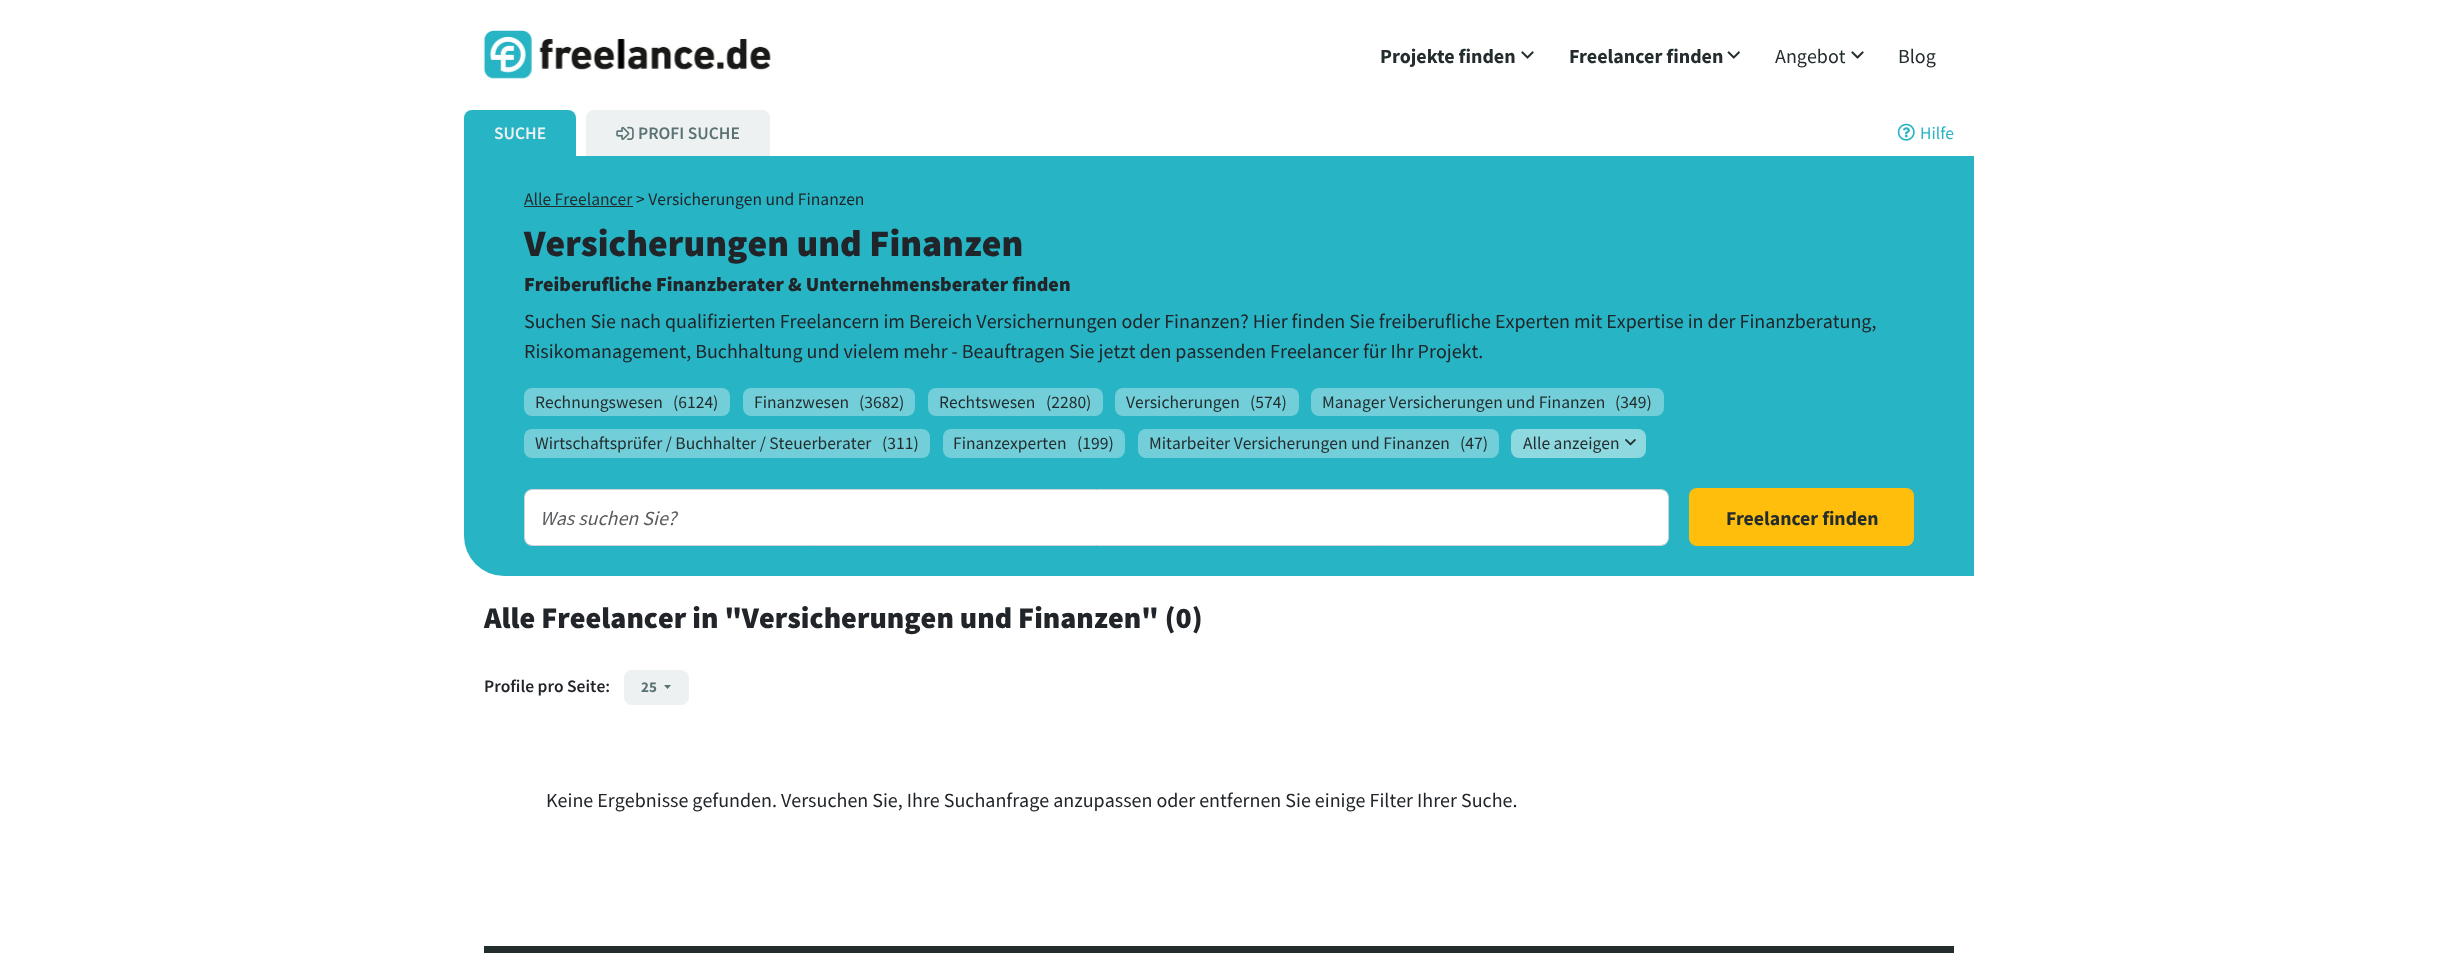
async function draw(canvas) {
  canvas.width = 2437
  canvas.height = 972
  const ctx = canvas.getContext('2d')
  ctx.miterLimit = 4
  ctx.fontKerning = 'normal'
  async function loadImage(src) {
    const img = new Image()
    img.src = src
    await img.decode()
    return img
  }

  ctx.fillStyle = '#fff'
  ctx.fillRect(0, 0, 2437, 972)
  ctx.drawImage(await loadImage('image0.png'), 483, 30, 288, 49)
  ctx.font = 'bold 20px Source Sans Pro'
  ctx.fillStyle = '#242d2e'
  ctx.fillText('Projekte finden', 1380, 63)
  ctx.drawImage(await loadImage('image1.png'), 1521, 51, 13, 8)
  ctx.fillText('Freelancer finden', 1569, 63)
  ctx.drawImage(await loadImage('image2.png'), 1727, 51, 13, 8)
  ctx.font = '20px Source Sans Pro'
  ctx.fillText('Angebot', 1775, 63)
  ctx.drawImage(await loadImage('image1.png'), 1851, 51, 13, 8)
  ctx.fillText('Blog', 1898, 63)
  ctx.fillStyle = '#27b4c4'
  ctx.beginPath()
  ctx.roundRect(464, 110, 112, 46, [8, 8, 0, 0])
  ctx.fill()
  ctx.font = '600 17.5px Source Sans Pro'
  ctx.fillStyle = '#eef1f1'
  ctx.fillText('SUCHE', 494, 139)
  ctx.beginPath()
  ctx.roundRect(586, 110, 184, 46, [8, 8, 0, 0])
  ctx.fill()
  ctx.drawImage(await loadImage('image3.png'), 616, 126, 18, 14)
  ctx.fillStyle = '#5a7273'
  ctx.fillText('PROFI SUCHE', 638, 139)
  ctx.drawImage(await loadImage('image4.png'), 1897, 123, 18, 18)
  ctx.font = '17.5px Source Sans Pro'
  ctx.fillStyle = '#27b4c4'
  ctx.fillText('Hilfe', 1920, 139)
  ctx.beginPath()
  ctx.roundRect(464, 156, 1510, 420, [0, 0, 0, 40])
  ctx.fill()
  ctx.fillStyle = '#242d2e'
  ctx.fillText('Alle Freelancer', 524, 205)
  ctx.fillRect(524, 206, 109, 1)
  ctx.fillStyle = '#212529'
  ctx.fillText('> Versicherungen und Finanzen', 636, 205)
  ctx.font = '900 37.5px Source Sans Pro'
  ctx.fillText('Versicherungen und Finanzen', 524, 256)
  ctx.font = '900 20px Source Sans Pro'
  ctx.fillText('Freiberufliche Finanzberater & Unternehmensberater finden', 524, 291)
  ctx.font = '20px Source Sans Pro'
  ctx.fillText('Suchen Sie nach qualifizierten Freelancern im Bereich Versichernungen oder Finanzen? Hier finden Sie freiberufliche Experten mit Expertise in der Finanzberatung,', 524, 328)
  ctx.fillText('Risikomanagement, Buchhaltung und vielem mehr - Beauftragen Sie jetzt den passenden Freelancer für Ihr Projekt.', 524, 358)
  ctx.fillStyle = '#72ced9'
  ctx.beginPath()
  ctx.roundRect(524, 388, 206, 28, 8)
  ctx.fill()
  ctx.font = '17.5px Source Sans Pro'
  ctx.fillStyle = '#242d2e'
  ctx.fillText('Rechnungswesen', 535, 408)
  ctx.fillText('(6124)', 673, 408)
  ctx.fillStyle = '#72ced9'
  ctx.beginPath()
  ctx.roundRect(743, 388, 172, 28, 8)
  ctx.fill()
  ctx.fillStyle = '#242d2e'
  ctx.fillText('Finanzwesen', 754, 408)
  ctx.fillText('(3682)', 859, 408)
  ctx.fillStyle = '#72ced9'
  ctx.beginPath()
  ctx.roundRect(928, 388, 175, 28, 8)
  ctx.fill()
  ctx.fillStyle = '#242d2e'
  ctx.fillText('Rechtswesen', 939, 408)
  ctx.fillText('(2280)', 1046, 408)
  ctx.fillStyle = '#72ced9'
  ctx.beginPath()
  ctx.roundRect(1115, 388, 184, 28, 8)
  ctx.fill()
  ctx.fillStyle = '#242d2e'
  ctx.fillText('Versicherungen', 1126, 408)
  ctx.fillText('(574)', 1250, 408)
  ctx.fillStyle = '#72ced9'
  ctx.beginPath()
  ctx.roundRect(1311, 388, 353, 28, 8)
  ctx.fill()
  ctx.fillStyle = '#242d2e'
  ctx.fillText('Manager Versicherungen und Finanzen', 1322, 408)
  ctx.fillText('(349)', 1615, 408)
  ctx.fillStyle = '#72ced9'
  ctx.beginPath()
  ctx.roundRect(524, 429, 406, 29, 8)
  ctx.fill()
  ctx.fillStyle = '#242d2e'
  ctx.fillText('Wirtschaftsprüfer / Buchhalter / Steuerberater', 535, 449)
  ctx.fillText('(311)', 882, 449)
  ctx.fillStyle = '#72ced9'
  ctx.beginPath()
  ctx.roundRect(943, 429, 182, 29, 8)
  ctx.fill()
  ctx.fillStyle = '#242d2e'
  ctx.fillText('Finanzexperten', 953, 449)
  ctx.fillText('(199)', 1077, 449)
  ctx.fillStyle = '#72ced9'
  ctx.beginPath()
  ctx.roundRect(1138, 429, 361, 29, 8)
  ctx.fill()
  ctx.fillStyle = '#242d2e'
  ctx.fillText('Mitarbeiter Versicherungen und Finanzen', 1149, 449)
  ctx.fillText('(47)', 1460, 449)
  ctx.fillStyle = '#8ed8e0'
  ctx.beginPath()
  ctx.roundRect(1511, 429, 135, 29, 8)
  ctx.fill()
  ctx.fillStyle = '#242d2e'
  ctx.fillText('Alle anzeigen', 1523, 449)
  ctx.drawImage(await loadImage('image5.png'), 1625, 439, 11, 7)
  ctx.fillStyle = '#fff'
  ctx.beginPath()
  ctx.roundRect(525, 490, 1143, 55, 6)
  ctx.fill()
  ctx.beginPath()
  ctx.roundRect(524.5, 489.5, 1144, 56, 7.5)
  ctx.strokeStyle = '#cdd4d5'
  ctx.stroke()
  ctx.font = 'italic 20px Source Sans Pro'
  ctx.fillStyle = '#595c5f'
  ctx.fillText('Was suchen Sie?', 540, 525)
  ctx.fillStyle = '#ffbe0b'
  ctx.beginPath()
  ctx.roundRect(1689, 488, 225, 58, 8)
  ctx.fill()
  ctx.font = 'bold 19.75px Source Sans Pro'
  ctx.fillStyle = '#242d2e'
  ctx.fillText('Freelancer finden', 1726, 525)
  ctx.font = '900 30px Source Sans Pro'
  ctx.fillStyle = '#212529'
  ctx.fillText('Alle Freelancer in "Versicherungen und Finanzen" (0)', 484, 628)
  ctx.font = '600 17.5px Source Sans Pro'
  ctx.fillText('Profile pro Seite:', 484, 692)
  ctx.fillStyle = '#eef1f1'
  ctx.beginPath()
  ctx.roundRect(624, 670, 65, 35, 8)
  ctx.fill()
  ctx.font = 'bold 15px Source Sans Pro'
  ctx.fillStyle = '#5a7273'
  ctx.fillText('25', 641, 692)
  ctx.beginPath()
  ctx.moveTo(664, 685)
  ctx.lineTo(671, 685)
  ctx.lineTo(667.5, 689)
  ctx.closePath()
  ctx.fill()
  ctx.font = '20px Source Sans Pro'
  ctx.fillStyle = '#212529'
  ctx.fillText('Keine Ergebnisse gefunden. Versuchen Sie, Ihre Suchanfrage anzupassen oder entfernen Sie einige Filter Ihrer Suche.', 546, 807)
  ctx.fillStyle = '#242d2e'
  ctx.fillRect(484, 946, 1470, 7)
}

draw(document.querySelector('canvas'))
